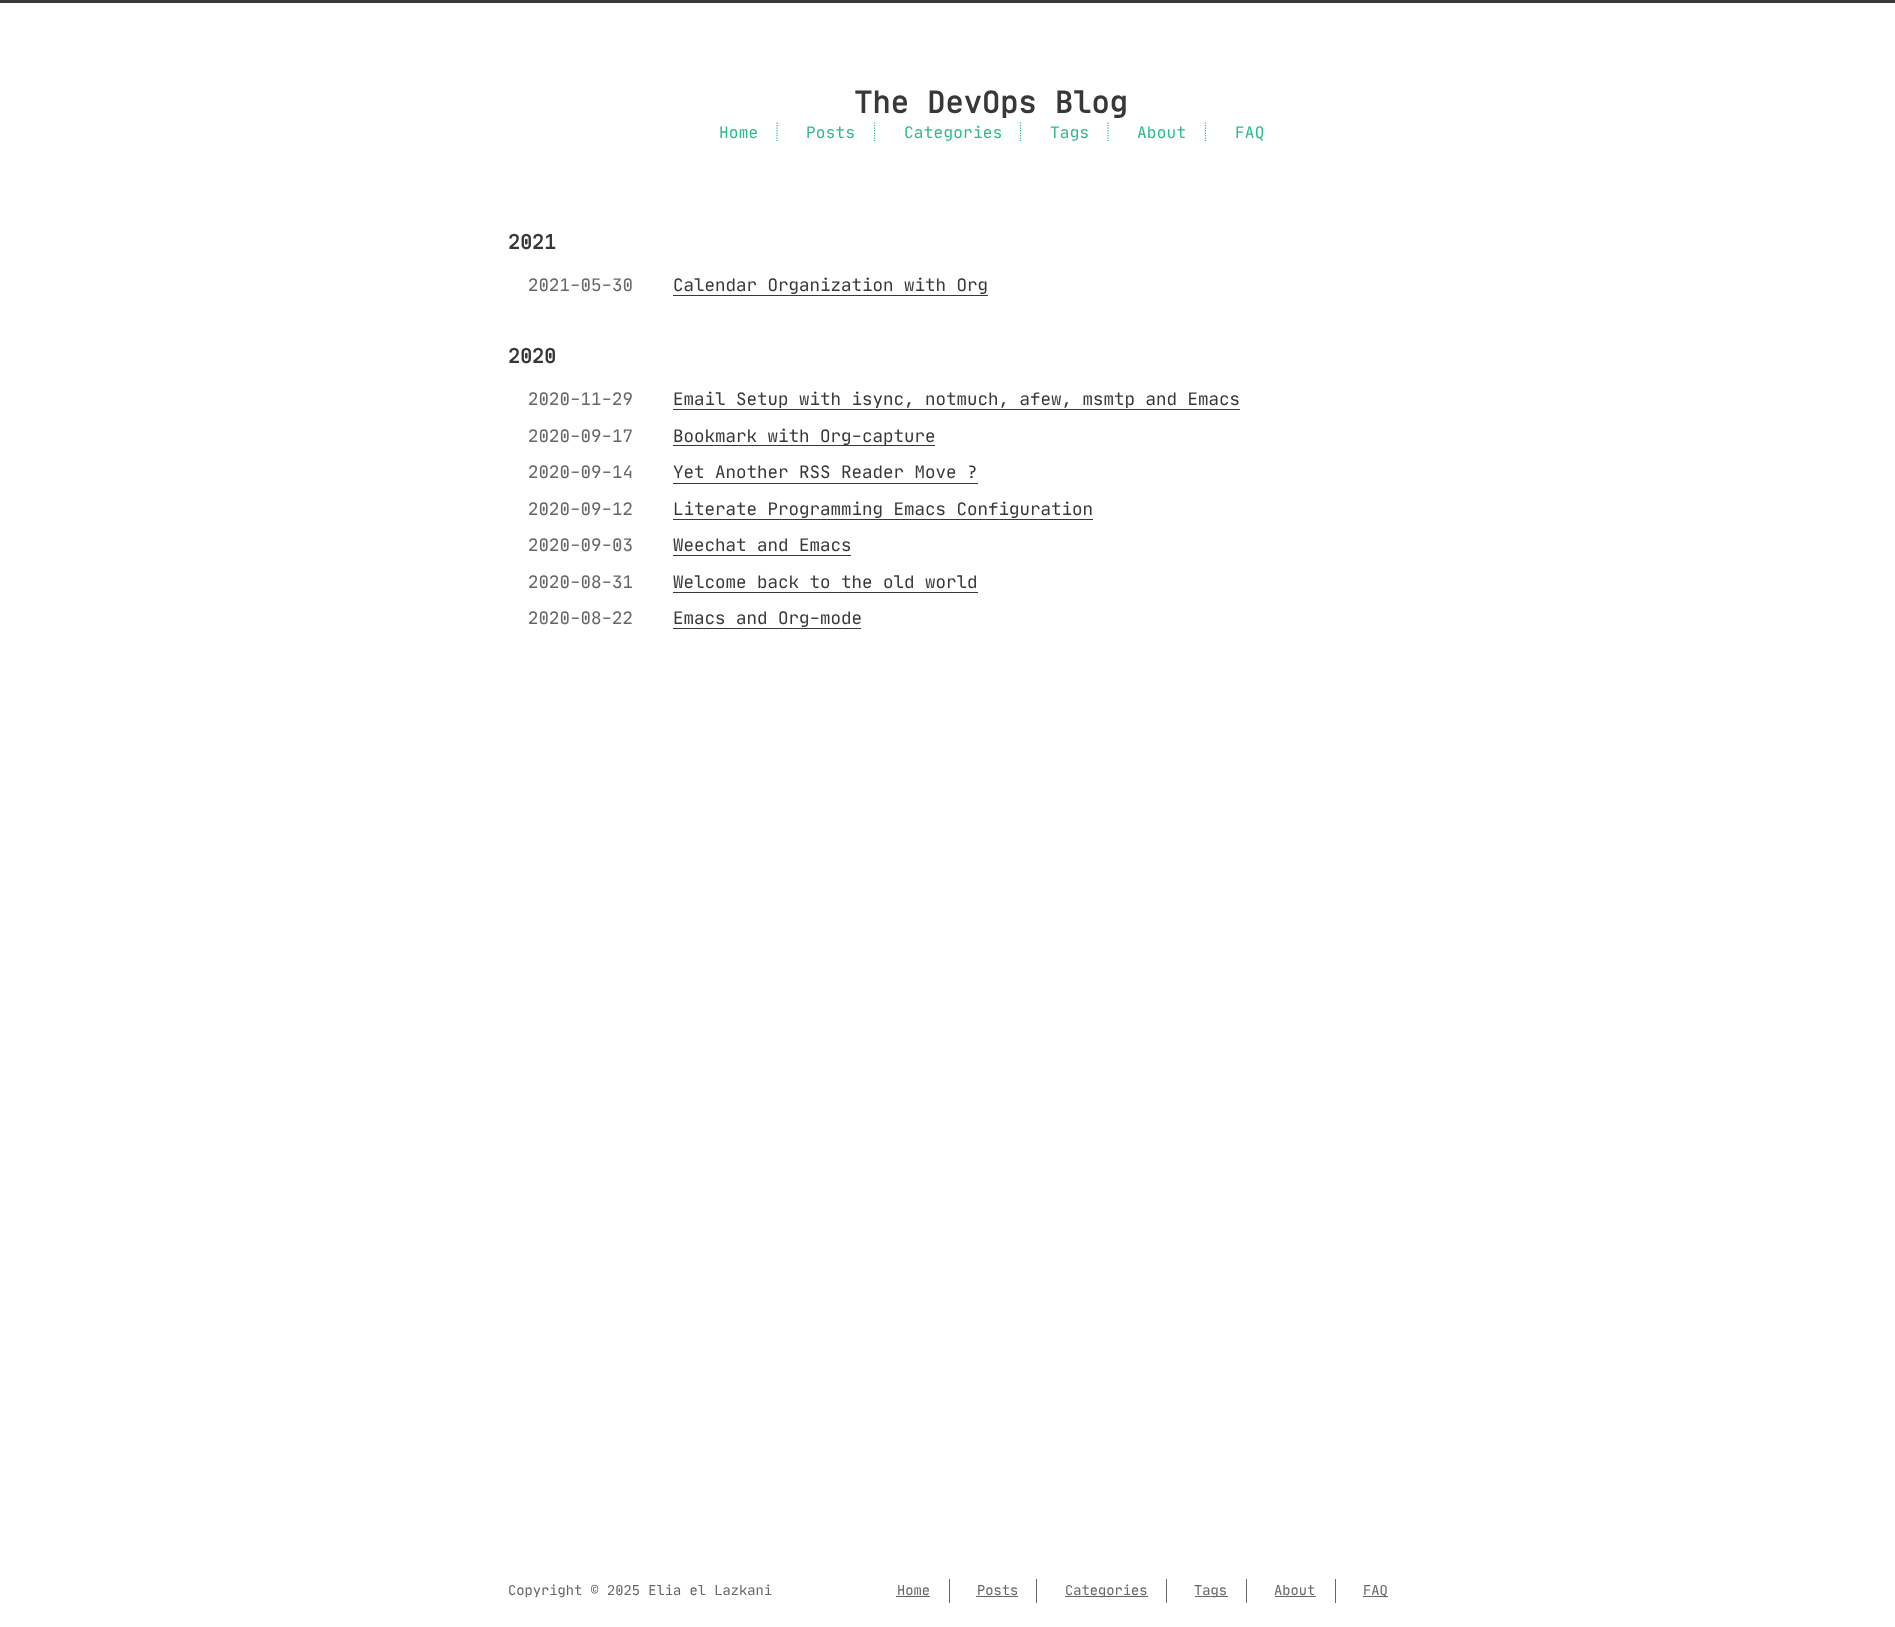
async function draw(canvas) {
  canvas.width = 1895
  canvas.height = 1627
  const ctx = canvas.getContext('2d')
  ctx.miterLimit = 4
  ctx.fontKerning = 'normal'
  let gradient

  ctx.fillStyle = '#fff'
  ctx.fillRect(0, 0, 1895, 1627)
  ctx.fillStyle = '#383838'
  ctx.fillRect(0, 0, 1895, 3)
  ctx.letterSpacing = '0.25px'
  ctx.font = 'bold 30px JetBrains Mono'
  ctx.fillText('The DevOps Blog', 854, 113)
  ctx.beginPath()
  ctx.moveTo(777, 122.5)
  ctx.lineTo(777, 141)
  ctx.strokeStyle = '#2bbc8a'
  ctx.lineWidth = 1.2
  ctx.setLineDash([1.25, 1.25])
  ctx.stroke()
  ctx.font = '16px JetBrains Mono'
  ctx.fillStyle = '#2bbc8a'
  ctx.fillText('Home', 719, 138)
  ctx.beginPath()
  ctx.moveTo(874.5, 122.5)
  ctx.lineTo(874.5, 141)
  ctx.stroke()
  ctx.fillText('Posts', 806, 138)
  ctx.beginPath()
  ctx.moveTo(1020.5, 122.5)
  ctx.lineTo(1020.5, 141)
  ctx.stroke()
  ctx.fillText('Categories', 904, 138)
  ctx.beginPath()
  ctx.moveTo(1108, 122.5)
  ctx.lineTo(1108, 141)
  ctx.stroke()
  ctx.fillText('Tags', 1050, 138)
  ctx.beginPath()
  ctx.moveTo(1205.5, 122.5)
  ctx.lineTo(1205.5, 141)
  ctx.stroke()
  ctx.fillText('About', 1137, 138)
  ctx.fillText('FAQ', 1235, 138)
  ctx.letterSpacing = '0px'
  ctx.font = 'bold 20px JetBrains Mono'
  ctx.fillStyle = '#383838'
  ctx.fillText('2021', 508, 249)
  ctx.font = '17.5px JetBrains Mono'
  ctx.fillStyle = '#666'
  ctx.fillText('2021-05-30', 528, 291)
  ctx.fillStyle = '#383838'
  ctx.fillText('Calendar Organization with Org', 673, 291)
  gradient = ctx.createLinearGradient(830, 289, 830, 296)
  gradient.addColorStop(0, '#fff')
  gradient.addColorStop(0.83, '#fff')
  gradient.addColorStop(0.83, '#383838')
  gradient.addColorStop(1, '#383838')
  ctx.fillStyle = gradient
  ctx.fillRect(673, 295, 315, 1)
  ctx.font = 'bold 20px JetBrains Mono'
  ctx.fillStyle = '#383838'
  ctx.fillText('2020', 508, 363)
  ctx.font = '17.5px JetBrains Mono'
  ctx.fillStyle = '#666'
  ctx.fillText('2020-11-29', 528, 405)
  ctx.fillStyle = '#383838'
  ctx.fillText('Email Setup with isync, notmuch, afew, msmtp and Emacs', 673, 405)
  gradient = ctx.createLinearGradient(956, 403, 956, 410)
  gradient.addColorStop(0, '#fff')
  gradient.addColorStop(0.83, '#fff')
  gradient.addColorStop(0.83, '#383838')
  gradient.addColorStop(1, '#383838')
  ctx.fillStyle = gradient
  ctx.fillRect(673, 409, 567, 1)
  ctx.fillStyle = '#666'
  ctx.fillText('2020-09-17', 528, 442)
  ctx.fillStyle = '#383838'
  ctx.fillText('Bookmark with Org-capture', 673, 442)
  gradient = ctx.createLinearGradient(804, 439, 804, 446)
  gradient.addColorStop(0, '#fff')
  gradient.addColorStop(0.83, '#fff')
  gradient.addColorStop(0.83, '#383838')
  gradient.addColorStop(1, '#383838')
  ctx.fillStyle = gradient
  ctx.fillRect(673, 445, 262, 1)
  ctx.fillStyle = '#666'
  ctx.fillText('2020-09-14', 528, 478)
  ctx.fillStyle = '#383838'
  ctx.fillText('Yet Another RSS Reader Move ?', 673, 478)
  gradient = ctx.createLinearGradient(825, 476, 825, 484)
  gradient.addColorStop(0, '#fff')
  gradient.addColorStop(0.83, '#fff')
  gradient.addColorStop(0.83, '#383838')
  gradient.addColorStop(1, '#383838')
  ctx.fillStyle = gradient
  ctx.fillRect(673, 483, 305, 1)
  ctx.fillStyle = '#666'
  ctx.fillText('2020-09-12', 528, 515)
  ctx.fillStyle = '#383838'
  ctx.fillText('Literate Programming Emacs Configuration', 673, 515)
  gradient = ctx.createLinearGradient(883, 513, 883, 520)
  gradient.addColorStop(0, '#fff')
  gradient.addColorStop(0.83, '#fff')
  gradient.addColorStop(0.83, '#383838')
  gradient.addColorStop(1, '#383838')
  ctx.fillStyle = gradient
  ctx.fillRect(673, 519, 420, 1)
  ctx.fillStyle = '#666'
  ctx.fillText('2020-09-03', 528, 551)
  ctx.fillStyle = '#383838'
  ctx.fillText('Weechat and Emacs', 673, 551)
  gradient = ctx.createLinearGradient(762, 549, 762, 556)
  gradient.addColorStop(0, '#fff')
  gradient.addColorStop(0.83, '#fff')
  gradient.addColorStop(0.83, '#383838')
  gradient.addColorStop(1, '#383838')
  ctx.fillStyle = gradient
  ctx.fillRect(673, 555, 178, 1)
  ctx.fillStyle = '#666'
  ctx.fillText('2020-08-31', 528, 588)
  ctx.fillStyle = '#383838'
  ctx.fillText('Welcome back to the old world', 673, 588)
  gradient = ctx.createLinearGradient(825, 585, 825, 593)
  gradient.addColorStop(0, '#fff')
  gradient.addColorStop(0.83, '#fff')
  gradient.addColorStop(0.83, '#383838')
  gradient.addColorStop(1, '#383838')
  ctx.fillStyle = gradient
  ctx.fillRect(673, 592, 305, 1)
  ctx.fillStyle = '#666'
  ctx.fillText('2020-08-22', 528, 624)
  ctx.fillStyle = '#383838'
  ctx.fillText('Emacs and Org-mode', 673, 624)
  gradient = ctx.createLinearGradient(767, 621, 767, 629)
  gradient.addColorStop(0, '#fff')
  gradient.addColorStop(0.83, '#fff')
  gradient.addColorStop(0.83, '#383838')
  gradient.addColorStop(1, '#383838')
  ctx.fillStyle = gradient
  ctx.fillRect(673, 628, 188, 1)
  ctx.font = '13.75px JetBrains Mono'
  ctx.fillStyle = '#666'
  ctx.fillText('Copyright © 2025 Elia el Lazkani', 508, 1595)
  ctx.fillRect(949, 1579, 1, 24)
  ctx.fillText('Home', 897, 1595)
  ctx.fillRect(896, 1596, 34, 1)
  ctx.fillRect(1036, 1579, 1, 24)
  ctx.fillText('Posts', 977, 1595)
  ctx.fillRect(976, 1596, 42, 1)
  ctx.fillRect(1166, 1579, 1, 24)
  ctx.fillRect(1065, 1596, 83, 1)
  ctx.fillText('Categories', 1065, 1595)
  ctx.fillRect(1246, 1579, 1, 24)
  ctx.fillRect(1195, 1596, 33, 1)
  ctx.fillText('Tags', 1194, 1595)
  ctx.fillRect(1335, 1579, 1, 24)
  ctx.fillText('About', 1274, 1595)
  ctx.fillRect(1275, 1596, 41, 1)
  ctx.fillRect(1363, 1596, 25, 1)
  ctx.fillText('FAQ', 1363, 1595)
}

draw(document.querySelector('canvas'))
